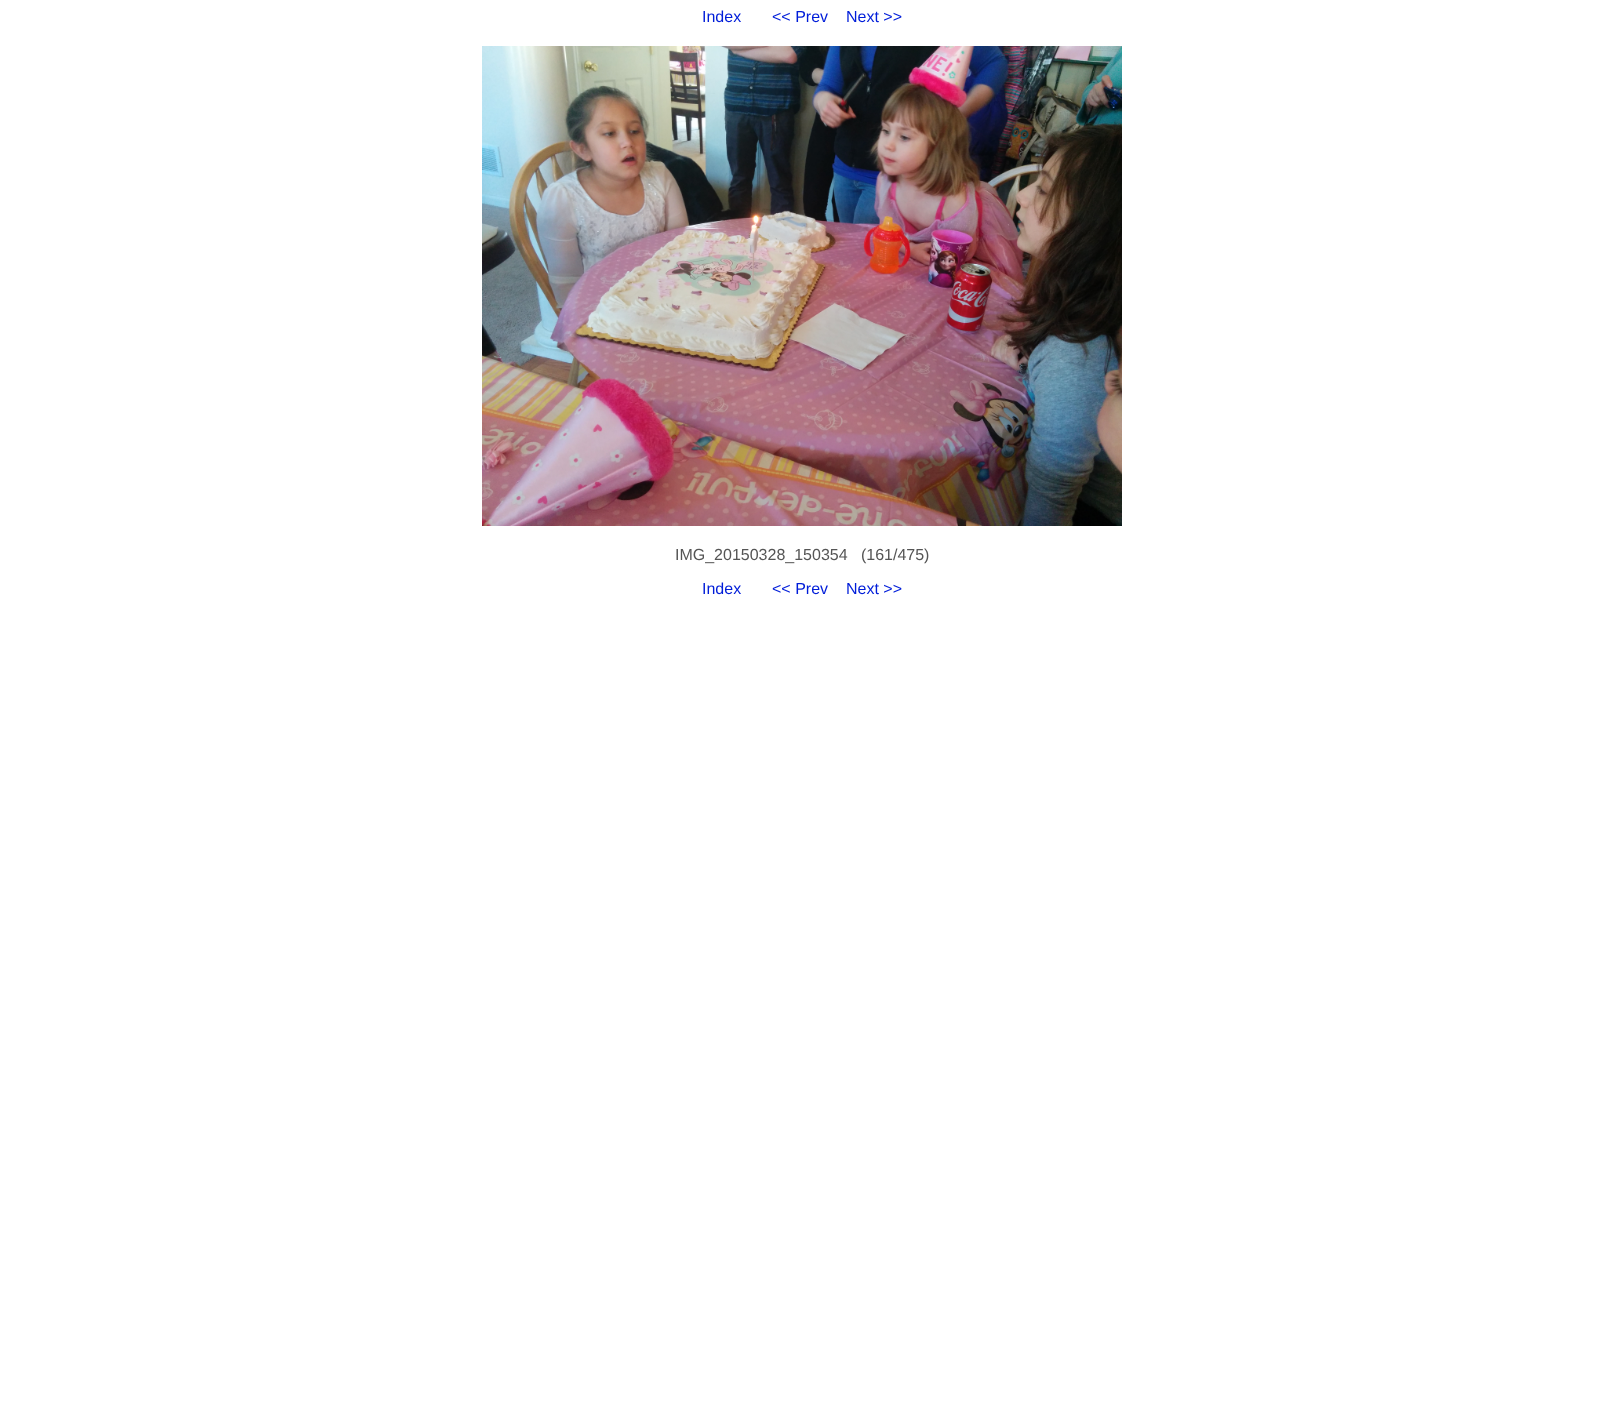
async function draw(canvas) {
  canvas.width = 1604
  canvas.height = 1411
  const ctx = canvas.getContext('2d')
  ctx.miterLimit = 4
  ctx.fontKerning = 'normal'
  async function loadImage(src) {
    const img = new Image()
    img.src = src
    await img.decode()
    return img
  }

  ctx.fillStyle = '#fff'
  ctx.fillRect(0, 0, 1604, 1411)
  ctx.font = '16px Liberation Sans'
  ctx.fillStyle = '#001dd9'
  ctx.fillText('Index', 702, 22)
  ctx.fillText('<< Prev', 772, 22)
  ctx.fillText('Next >>', 846, 22)
  ctx.drawImage(await loadImage('image0.png'), 482, 46, 640, 480)
  ctx.fillStyle = '#555'
  ctx.fillText('IMG_20150328_150354   (161/475)', 675, 560)
  ctx.fillStyle = '#001dd9'
  ctx.fillText('Index', 702, 594)
  ctx.fillText('<< Prev', 772, 594)
  ctx.fillText('Next >>', 846, 594)
}

draw(document.querySelector('canvas'))
